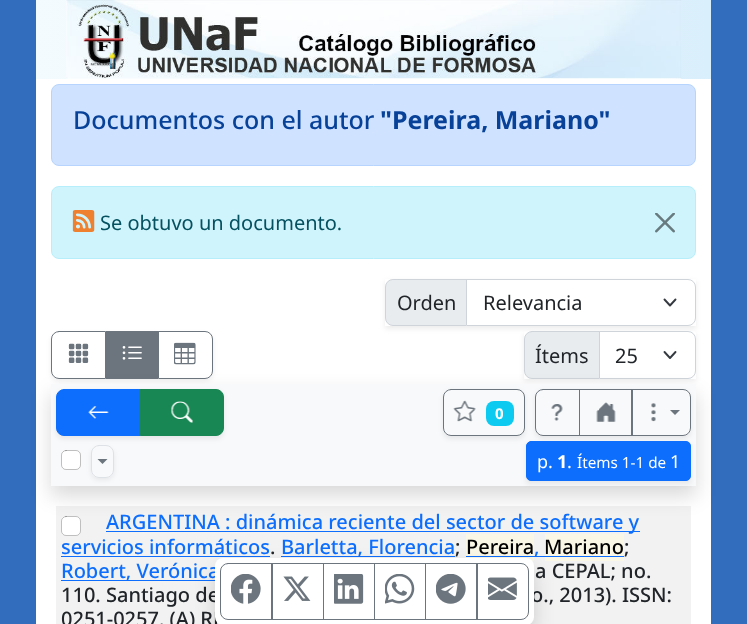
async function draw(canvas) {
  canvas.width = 747
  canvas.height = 624
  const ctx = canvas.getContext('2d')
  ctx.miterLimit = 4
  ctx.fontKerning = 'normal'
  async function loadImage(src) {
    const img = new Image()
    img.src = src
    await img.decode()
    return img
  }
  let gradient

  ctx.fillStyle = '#316dbc'
  ctx.fillRect(0, 0, 747, 624)
  gradient = ctx.createLinearGradient(36, 39, 711, 39)
  gradient.addColorStop(0, '#f4fbfe')
  gradient.addColorStop(1, '#d9effb')
  ctx.fillStyle = gradient
  ctx.fillRect(36, 0, 675, 79)
  ctx.drawImage(await loadImage('image0.png'), 66, 0, 616, 79)
  ctx.fillStyle = '#fff'
  ctx.fillRect(36, 79, 675, 545)
  ctx.fillStyle = '#cfe2ff'
  ctx.beginPath()
  ctx.roundRect(51.5, 84.5, 644, 81, 7.5)
  ctx.fill()
  ctx.strokeStyle = '#b6d4fe'
  ctx.stroke()
  ctx.font = '500 25px Noto Sans'
  ctx.fillStyle = '#084298'
  ctx.fillText('Documentos con el autor', 73, 129)
  ctx.font = 'bold 25px Noto Sans'
  ctx.fillText('"Pereira, Mariano"', 380, 129)
  ctx.fillStyle = '#cff4fc'
  ctx.beginPath()
  ctx.roundRect(51.5, 186.5, 644, 72, 7.5)
  ctx.fill()
  ctx.strokeStyle = '#b6effb'
  ctx.stroke()
  ctx.drawImage(await loadImage('image1.png'), 72, 210, 23, 22)
  ctx.font = '20px Noto Sans'
  ctx.fillStyle = '#055160'
  ctx.fillText('Se obtuvo un documento.', 100, 230)
  ctx.drawImage(await loadImage('image2.png'), 655, 213, 20, 20)
  ctx.save()
  ctx.beginPath()
  ctx.moveTo(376, 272)
  ctx.lineTo(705, 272)
  ctx.lineTo(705, 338)
  ctx.lineTo(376, 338)
  ctx.closePath()
  ctx.moveTo(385, 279)
  ctx.lineTo(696, 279)
  ctx.lineTo(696, 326)
  ctx.lineTo(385, 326)
  ctx.closePath()
  ctx.clip('evenodd')
  ctx.fillStyle = '#00000012'
  ctx.filter = 'blur(2.5px)'
  ctx.beginPath()
  ctx.rect(385, 281, 311, 48)
  ctx.fill()
  ctx.filter = 'none'
  ctx.restore()
  ctx.fillStyle = '#e9ecef'
  ctx.beginPath()
  ctx.roundRect(385.5, 279.5, 82, 46, [7.5, 0, 0, 7.5])
  ctx.fill()
  ctx.strokeStyle = '#ced4da'
  ctx.stroke()
  ctx.fillStyle = '#212529'
  ctx.fillText('Orden', 397, 310)
  ctx.fillStyle = '#fff'
  ctx.beginPath()
  ctx.roundRect(466, 279, 230, 47, [0, 8, 8, 0])
  ctx.fill()
  ctx.beginPath()
  ctx.moveTo(664.5, 299.5)
  ctx.lineTo(670, 305.5)
  ctx.lineTo(675.5, 299.5)
  ctx.strokeStyle = '#343a40'
  ctx.lineWidth = 1.9
  ctx.lineCap = 'round'
  ctx.lineJoin = 'round'
  ctx.stroke()
  ctx.beginPath()
  ctx.roundRect(466.5, 279.5, 229, 46, [0, 7.5, 7.5, 0])
  ctx.strokeStyle = '#ced4da'
  ctx.lineWidth = 1
  ctx.lineJoin = 'miter'
  ctx.stroke()
  ctx.fillStyle = '#212529'
  ctx.fillText('Relevancia', 483, 310)
  ctx.save()
  ctx.beginPath()
  ctx.moveTo(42, 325)
  ctx.lineTo(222, 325)
  ctx.lineTo(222, 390)
  ctx.lineTo(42, 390)
  ctx.closePath()
  ctx.moveTo(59, 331)
  ctx.lineTo(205, 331)
  ctx.bezierCurveTo(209.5, 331, 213, 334.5, 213, 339)
  ctx.lineTo(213, 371)
  ctx.bezierCurveTo(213, 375.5, 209.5, 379, 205, 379)
  ctx.lineTo(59, 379)
  ctx.bezierCurveTo(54.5, 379, 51, 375.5, 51, 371)
  ctx.lineTo(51, 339)
  ctx.bezierCurveTo(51, 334.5, 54.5, 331, 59, 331)
  ctx.closePath()
  ctx.clip('evenodd')
  ctx.fillStyle = '#00000012'
  ctx.filter = 'blur(2.5px)'
  ctx.beginPath()
  ctx.roundRect(51, 334, 162, 47, 8)
  ctx.fill()
  ctx.filter = 'none'
  ctx.restore()
  ctx.beginPath()
  ctx.roundRect(51.5, 331.5, 54, 47, [7.5, 0, 0, 7.5])
  ctx.strokeStyle = '#6c757d'
  ctx.stroke()
  ctx.drawImage(await loadImage('image3.png'), 68, 343, 21, 20)
  ctx.fillStyle = '#6c757d'
  ctx.fillRect(106, 331, 52, 48)
  ctx.drawImage(await loadImage('image4.png'), 122, 346, 20, 14)
  ctx.beginPath()
  ctx.roundRect(158.5, 331.5, 54, 47, [0, 7.5, 7.5, 0])
  ctx.stroke()
  ctx.drawImage(await loadImage('image5.png'), 174, 342, 22, 23)
  ctx.save()
  ctx.beginPath()
  ctx.moveTo(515, 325)
  ctx.lineTo(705, 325)
  ctx.lineTo(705, 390)
  ctx.lineTo(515, 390)
  ctx.closePath()
  ctx.moveTo(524, 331)
  ctx.lineTo(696, 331)
  ctx.lineTo(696, 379)
  ctx.lineTo(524, 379)
  ctx.closePath()
  ctx.clip('evenodd')
  ctx.fillStyle = '#00000012'
  ctx.filter = 'blur(2.5px)'
  ctx.beginPath()
  ctx.rect(524, 334, 172, 47)
  ctx.fill()
  ctx.filter = 'none'
  ctx.restore()
  ctx.fillStyle = '#e9ecef'
  ctx.beginPath()
  ctx.roundRect(524.5, 331.5, 75, 47, [7.5, 0, 0, 7.5])
  ctx.fill()
  ctx.strokeStyle = '#ced4da'
  ctx.stroke()
  ctx.fillStyle = '#212529'
  ctx.fillText('Ítems', 535, 363)
  ctx.fillStyle = '#fff'
  ctx.beginPath()
  ctx.roundRect(599, 331, 97, 48, [0, 8, 8, 0])
  ctx.fill()
  ctx.beginPath()
  ctx.moveTo(664.5, 352)
  ctx.lineTo(670, 358)
  ctx.lineTo(675.5, 352)
  ctx.strokeStyle = '#343a40'
  ctx.lineWidth = 1.9
  ctx.lineJoin = 'round'
  ctx.stroke()
  ctx.beginPath()
  ctx.roundRect(599.5, 331.5, 96, 47, [0, 7.5, 7.5, 0])
  ctx.strokeStyle = '#ced4da'
  ctx.lineWidth = 1
  ctx.lineJoin = 'miter'
  ctx.stroke()
  ctx.fillStyle = '#212529'
  ctx.fillText('25', 615, 363)
  ctx.fillStyle = '#0000000d'
  ctx.fillRect(56, 506, 635, 118)
  ctx.fillStyle = '#fff'
  ctx.beginPath()
  ctx.roundRect(61, 516, 20, 20, 5)
  ctx.fill()
  ctx.beginPath()
  ctx.roundRect(61.5, 516.5, 19, 19, 4.5)
  ctx.strokeStyle = '#00000040'
  ctx.stroke()
  ctx.fillStyle = '#00000026'
  ctx.filter = 'blur(10px)'
  ctx.beginPath()
  ctx.rect(51, 394, 645, 102)
  ctx.fill()
  ctx.filter = 'none'
  ctx.fillStyle = '#f8f9fa'
  ctx.fillRect(51, 384, 645, 102)
  ctx.save()
  ctx.beginPath()
  ctx.moveTo(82, 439)
  ctx.lineTo(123, 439)
  ctx.lineTo(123, 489)
  ctx.lineTo(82, 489)
  ctx.closePath()
  ctx.moveTo(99, 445)
  ctx.lineTo(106, 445)
  ctx.bezierCurveTo(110.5, 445, 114, 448.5, 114, 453)
  ctx.lineTo(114, 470)
  ctx.bezierCurveTo(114, 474.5, 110.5, 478, 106, 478)
  ctx.lineTo(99, 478)
  ctx.bezierCurveTo(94.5, 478, 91, 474.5, 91, 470)
  ctx.lineTo(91, 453)
  ctx.bezierCurveTo(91, 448.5, 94.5, 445, 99, 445)
  ctx.closePath()
  ctx.clip('evenodd')
  ctx.fillStyle = '#00000012'
  ctx.filter = 'blur(2.5px)'
  ctx.beginPath()
  ctx.roundRect(91, 448, 23, 32, 8)
  ctx.fill()
  ctx.filter = 'none'
  ctx.restore()
  ctx.beginPath()
  ctx.roundRect(91.5, 445.5, 22, 32, 7.5)
  ctx.strokeStyle = '#dee2e6'
  ctx.stroke()
  ctx.fillStyle = '#00000012'
  ctx.filter = 'blur(2.5px)'
  ctx.beginPath()
  ctx.roundRect(56, 391, 168, 48, 8)
  ctx.fill()
  ctx.filter = 'none'
  ctx.fillStyle = '#0d6efd'
  ctx.beginPath()
  ctx.roundRect(56.5, 389.5, 84, 46, [7.5, 0, 0, 7.5])
  ctx.fill()
  ctx.strokeStyle = '#0d6efd'
  ctx.stroke()
  ctx.drawImage(await loadImage('image6.png'), 88, 406, 21, 13)
  ctx.fillStyle = '#198754'
  ctx.beginPath()
  ctx.roundRect(140.5, 389.5, 83, 46, [0, 7.5, 7.5, 0])
  ctx.fill()
  ctx.strokeStyle = '#198754'
  ctx.stroke()
  ctx.drawImage(await loadImage('image7.png'), 171, 401, 22, 22)
  ctx.save()
  ctx.beginPath()
  ctx.moveTo(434, 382)
  ctx.lineTo(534, 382)
  ctx.lineTo(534, 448)
  ctx.lineTo(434, 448)
  ctx.closePath()
  ctx.moveTo(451, 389)
  ctx.lineTo(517, 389)
  ctx.bezierCurveTo(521.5, 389, 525, 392.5, 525, 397)
  ctx.lineTo(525, 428)
  ctx.bezierCurveTo(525, 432.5, 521.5, 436, 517, 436)
  ctx.lineTo(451, 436)
  ctx.bezierCurveTo(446.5, 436, 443, 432.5, 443, 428)
  ctx.lineTo(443, 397)
  ctx.bezierCurveTo(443, 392.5, 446.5, 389, 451, 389)
  ctx.closePath()
  ctx.clip('evenodd')
  ctx.fillStyle = '#00000012'
  ctx.filter = 'blur(2.5px)'
  ctx.beginPath()
  ctx.roundRect(443, 391, 82, 48, 8)
  ctx.fill()
  ctx.filter = 'none'
  ctx.restore()
  ctx.fillStyle = '#00000012'
  ctx.filter = 'blur(2.5px)'
  ctx.beginPath()
  ctx.rect(526, 444, 165, 40)
  ctx.fill()
  ctx.filter = 'none'
  ctx.beginPath()
  ctx.roundRect(443.5, 389.5, 81, 46, 7.5)
  ctx.strokeStyle = '#6c757d'
  ctx.stroke()
  ctx.drawImage(await loadImage('image8.png'), 453, 400, 23, 22)
  ctx.fillStyle = '#0dcaf0'
  ctx.beginPath()
  ctx.roundRect(486, 401, 28, 25, 8)
  ctx.fill()
  ctx.font = 'bold 15px Noto Sans'
  ctx.fillStyle = '#fff'
  ctx.fillText('0', 495, 419)
  ctx.save()
  ctx.beginPath()
  ctx.moveTo(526, 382)
  ctx.lineTo(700, 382)
  ctx.lineTo(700, 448)
  ctx.lineTo(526, 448)
  ctx.closePath()
  ctx.moveTo(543, 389)
  ctx.lineTo(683, 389)
  ctx.bezierCurveTo(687.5, 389, 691, 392.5, 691, 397)
  ctx.lineTo(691, 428)
  ctx.bezierCurveTo(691, 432.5, 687.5, 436, 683, 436)
  ctx.lineTo(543, 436)
  ctx.bezierCurveTo(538.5, 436, 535, 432.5, 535, 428)
  ctx.lineTo(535, 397)
  ctx.bezierCurveTo(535, 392.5, 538.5, 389, 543, 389)
  ctx.closePath()
  ctx.clip('evenodd')
  ctx.fillStyle = '#00000012'
  ctx.filter = 'blur(2.5px)'
  ctx.beginPath()
  ctx.roundRect(535, 391, 156, 48, 8)
  ctx.fill()
  ctx.filter = 'none'
  ctx.restore()
  ctx.beginPath()
  ctx.roundRect(535.5, 389.5, 44, 46, [7.5, 0, 0, 7.5])
  ctx.stroke()
  ctx.drawImage(await loadImage('image9.png'), 551, 404, 12, 17)
  ctx.strokeRect(579.5, 389.5, 53, 46)
  ctx.drawImage(await loadImage('image10.png'), 596, 402, 20, 20)
  ctx.beginPath()
  ctx.roundRect(631.5, 389.5, 59, 46, [0, 7.5, 7.5, 0])
  ctx.stroke()
  ctx.drawImage(await loadImage('image11.png'), 651, 403, 5, 19)
  ctx.fillStyle = '#6c757d'
  ctx.beginPath()
  ctx.moveTo(670, 410)
  ctx.lineTo(680, 410)
  ctx.lineTo(675, 415)
  ctx.closePath()
  ctx.fill()
  ctx.fillStyle = '#fff'
  ctx.beginPath()
  ctx.roundRect(61, 450, 20, 20, 5)
  ctx.fill()
  ctx.beginPath()
  ctx.roundRect(61.5, 450.5, 19, 19, 4.5)
  ctx.strokeStyle = '#00000040'
  ctx.stroke()
  ctx.fillStyle = '#6c757d'
  ctx.beginPath()
  ctx.moveTo(97.5, 459)
  ctx.lineTo(107.5, 459)
  ctx.lineTo(102.5, 464)
  ctx.closePath()
  ctx.fill()
  ctx.fillStyle = '#0d6efd'
  ctx.beginPath()
  ctx.roundRect(526.5, 441.5, 164, 39, 4.5)
  ctx.fill()
  ctx.strokeStyle = '#0d6efd'
  ctx.stroke()
  ctx.font = '18px Noto Sans'
  ctx.fillStyle = '#fff'
  ctx.fillText('p.', 537, 468)
  ctx.font = 'bold 18px Noto Sans'
  ctx.fillText('1', 557, 468)
  ctx.font = '18px Noto Sans'
  ctx.fillText('.', 567, 468)
  ctx.font = '15.25px Noto Sans'
  ctx.fillText('Ítems 1-1 de', 577, 468)
  ctx.font = '18px Noto Sans'
  ctx.fillText('1', 670, 468)
  ctx.fillStyle = '#0d6efd'
  ctx.fillRect(106, 531, 534, 1)
  ctx.font = '500 20px Noto Sans'
  ctx.fillText('ARGENTINA : dinámica reciente del sector de software y', 106, 529)
  ctx.fillText('servicios informáticos', 61, 554)
  ctx.fillRect(61, 556, 209, 1)
  ctx.fillStyle = '#212529'
  ctx.fillText('.', 270, 554)
  ctx.fillStyle = '#0d6efd'
  ctx.fillRect(281, 556, 174, 1)
  ctx.fillText('Barletta, Florencia', 281, 554)
  ctx.fillStyle = '#212529'
  ctx.fillText(';', 455, 554)
  ctx.fillStyle = '#faf7e7'
  ctx.fillRect(466, 534, 68, 27)
  ctx.fillStyle = '#000'
  ctx.fillText('Pereira', 466, 554)
  ctx.fillStyle = '#0d6efd'
  ctx.fillRect(466, 556, 79, 1)
  ctx.fillText(',', 534, 554)
  ctx.fillStyle = '#faf7e7'
  ctx.fillRect(545, 534, 79, 27)
  ctx.fillStyle = '#0d6efd'
  ctx.fillRect(545, 556, 79, 1)
  ctx.fillStyle = '#000'
  ctx.fillText('Mariano', 544, 554)
  ctx.fillStyle = '#212529'
  ctx.fillText(';', 624, 554)
  ctx.fillStyle = '#0d6efd'
  ctx.fillRect(61, 580, 159, 1)
  ctx.fillText('Robert, Verónica', 61, 578)
  ctx.fillStyle = '#212529'
  ctx.fillText('a CEPAL; no.', 535, 578)
  ctx.fillText('110. Santiago de', 61, 602)
  ctx.fillText('o., 2013). ISSN:', 531, 602)
  ctx.fillText('0251-0257. (A) RE', 61, 626)
  ctx.fillStyle = '#00000026'
  ctx.filter = 'blur(10px)'
  ctx.beginPath()
  ctx.roundRect(215, 568, 319, 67, 8)
  ctx.fill()
  ctx.filter = 'none'
  ctx.fillStyle = '#fff'
  ctx.beginPath()
  ctx.roundRect(215, 558, 319, 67, 8)
  ctx.fill()
  ctx.beginPath()
  ctx.roundRect(220.5, 563.5, 52, 56, [7.5, 0, 0, 7.5])
  ctx.strokeStyle = '#6c757d'
  ctx.stroke()
  ctx.drawImage(await loadImage('image12.png'), 231, 574, 30, 30)
  ctx.strokeRect(271.5, 563.5, 52, 56)
  ctx.drawImage(await loadImage('image13.png'), 283, 576, 28, 25)
  ctx.strokeRect(323.5, 563.5, 51, 56)
  ctx.drawImage(await loadImage('image14.png'), 334, 574, 30, 30)
  ctx.strokeRect(374.5, 563.5, 51, 56)
  ctx.drawImage(await loadImage('image15.png'), 385, 574, 30, 30)
  ctx.strokeRect(425.5, 563.5, 52, 56)
  ctx.drawImage(await loadImage('image16.png'), 436, 574, 30, 30)
  ctx.beginPath()
  ctx.roundRect(476.5, 563.5, 52, 56, [0, 7.5, 7.5, 0])
  ctx.stroke()
  ctx.drawImage(await loadImage('image17.png'), 488, 577, 29, 23)
}

draw(document.querySelector('canvas'))
